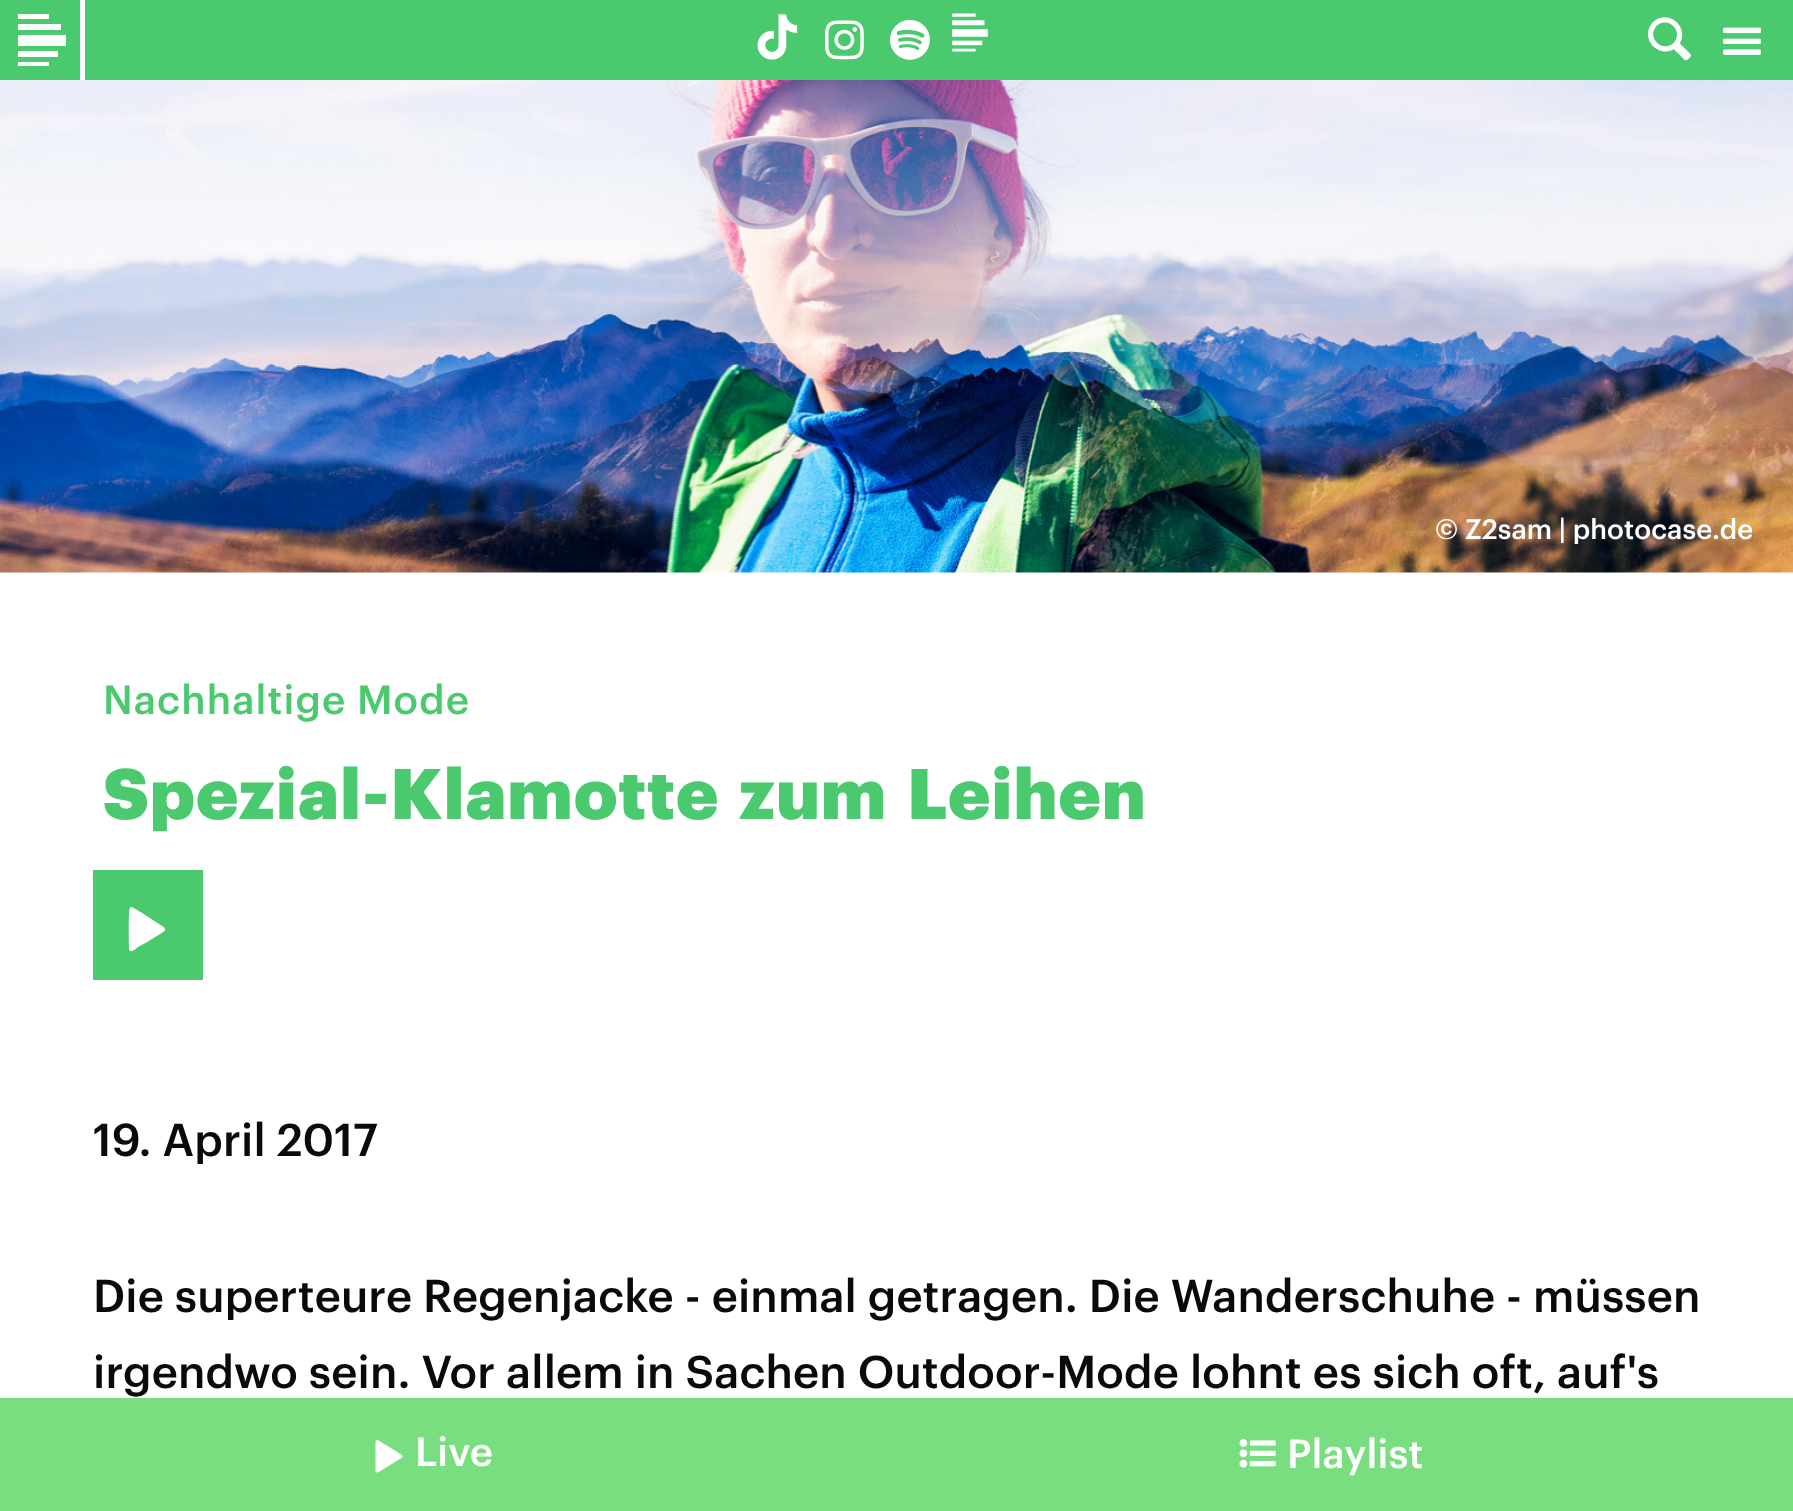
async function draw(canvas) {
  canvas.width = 1793
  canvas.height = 1511
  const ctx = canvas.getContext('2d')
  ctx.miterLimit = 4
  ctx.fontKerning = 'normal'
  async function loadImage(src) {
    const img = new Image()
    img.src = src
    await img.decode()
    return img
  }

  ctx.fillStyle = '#fff'
  ctx.fillRect(0, 0, 1793, 1511)
  ctx.fillStyle = '#4ac96f'
  ctx.fillRect(0, 0, 1793, 80)
  ctx.fillStyle = '#fefefe'
  ctx.fillRect(80, 0, 5, 80)
  ctx.fillStyle = '#fff'
  ctx.beginPath()
  ctx.moveTo(49, 66)
  ctx.lineTo(18, 66)
  ctx.lineTo(18, 62)
  ctx.lineTo(49, 62)
  ctx.closePath()
  ctx.moveTo(58, 51)
  ctx.lineTo(18, 51)
  ctx.lineTo(18, 57)
  ctx.lineTo(58, 57)
  ctx.closePath()
  ctx.moveTo(18, 19)
  ctx.lineTo(49, 19)
  ctx.lineTo(49, 14)
  ctx.lineTo(18, 14)
  ctx.closePath()
  ctx.moveTo(18, 30)
  ctx.lineTo(61, 30)
  ctx.lineTo(61, 24)
  ctx.lineTo(18, 24)
  ctx.closePath()
  ctx.moveTo(66, 35)
  ctx.lineTo(18, 35)
  ctx.lineTo(18, 46)
  ctx.lineTo(66, 46)
  ctx.closePath()
  ctx.fill()
  ctx.drawImage(await loadImage('image0.png'), 757, 14, 41, 46)
  ctx.drawImage(await loadImage('image1.png'), 825, 20, 39, 40)
  ctx.drawImage(await loadImage('image2.png'), 890, 19, 40, 41)
  ctx.drawImage(await loadImage('image3.png'), 952, 13, 36, 39)
  ctx.drawImage(await loadImage('image4.png'), 1648, 17, 43, 44)
  ctx.drawImage(await loadImage('image5.png'), 1723, 27, 39, 28)
  ctx.drawImage(await loadImage('image6.png'), 0, 80, 1793, 493)
  ctx.font = '500 27.5px Graphik'
  ctx.fillText('© Z2sam | photocase.de', 1435, 539)
  ctx.letterSpacing = '1px'
  ctx.font = '500 40px Graphik'
  ctx.fillStyle = '#4ac96f'
  ctx.fillText('Nachhaltige Mode', 103, 714)
  ctx.font = '800 70px Graphik'
  ctx.fillText('Spezial-Klamotte', 103, 819)
  ctx.fillText('zum', 739, 819)
  ctx.fillText('Leihen', 907, 819)
  ctx.fillRect(93, 870, 110, 110)
  ctx.fillStyle = '#fff'
  ctx.beginPath()
  ctx.moveTo(129, 948)
  ctx.bezierCurveTo(129, 943, 128, 910, 130, 908)
  ctx.lineTo(131, 907)
  ctx.bezierCurveTo(134, 907, 160, 925, 164, 927)
  ctx.lineTo(165, 929)
  ctx.lineTo(165, 930)
  ctx.bezierCurveTo(165, 932, 151, 939, 149, 941)
  ctx.lineTo(138, 947)
  ctx.bezierCurveTo(137, 948, 129, 955, 129, 948)
  ctx.closePath()
  ctx.fill()
  ctx.letterSpacing = '0px'
  ctx.font = '500 45px Graphik'
  ctx.fillStyle = '#0a0a0a'
  ctx.fillText('19. April 2017', 93, 1156)
  ctx.fillText('Die superteure Regenjacke - einmal getragen. Die Wanderschuhe - müssen', 93, 1312)
  ctx.fillText('irgendwo sein. Vor allem in Sachen Outdoor-Mode lohnt es sich oft, auf\'s', 93, 1388)
  ctx.fillStyle = '#78de7f'
  ctx.fillRect(0, 1398, 1793, 113)
  ctx.drawImage(await loadImage('image7.png'), 375, 1440, 28, 33)
  ctx.font = '500 40px Graphik'
  ctx.fillStyle = '#fff'
  ctx.fillText('Live', 415, 1466)
  ctx.drawImage(await loadImage('image8.png'), 1239, 1439, 37, 29)
  ctx.fillText('Playlist', 1287, 1468)
}

draw(document.querySelector('canvas'))
